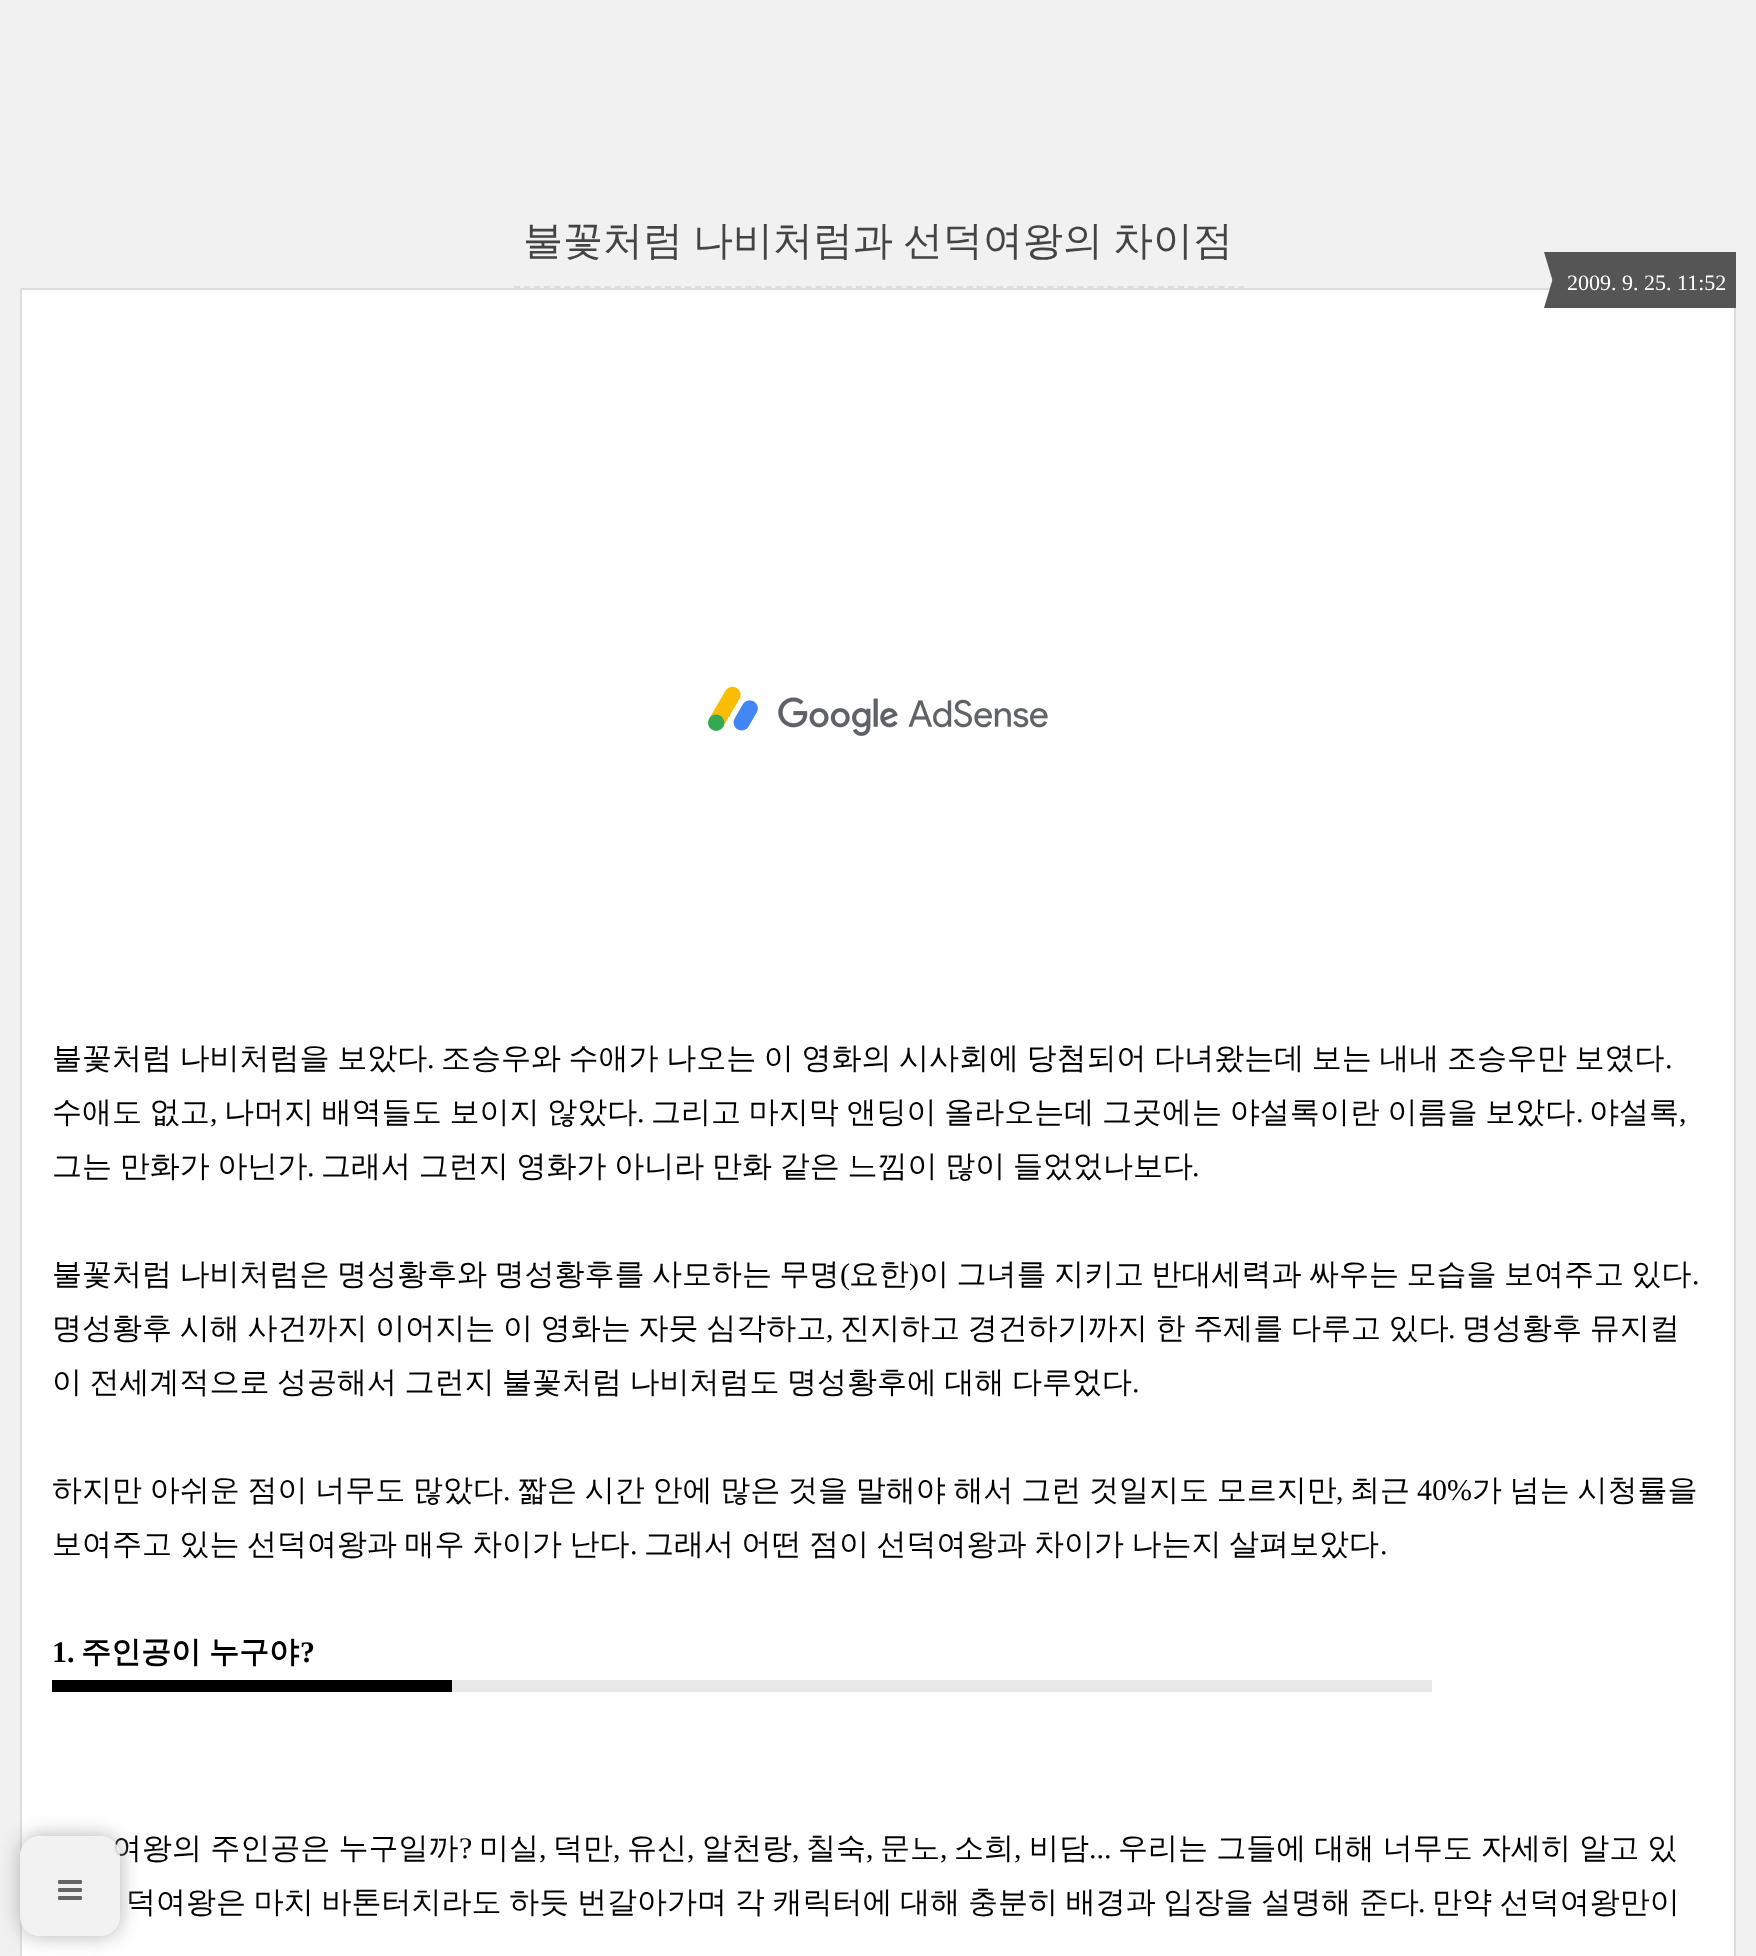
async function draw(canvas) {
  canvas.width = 1756
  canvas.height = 1956
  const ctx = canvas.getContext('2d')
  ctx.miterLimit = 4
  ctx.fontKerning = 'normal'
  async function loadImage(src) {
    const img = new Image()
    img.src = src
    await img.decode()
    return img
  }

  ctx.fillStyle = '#f1f1f1'
  ctx.fillRect(0, 0, 1756, 1956)
  ctx.beginPath()
  ctx.moveTo(514, 287)
  ctx.lineTo(1244, 287)
  ctx.strokeStyle = '#ddd'
  ctx.lineWidth = 2
  ctx.setLineDash([6, 4.06])
  ctx.stroke()
  ctx.wordSpacing = '-2px'
  ctx.font = '500 40px WenQuanYi Zen Hei'
  ctx.fillStyle = '#444'
  ctx.fillText('불꽃처럼 나비처럼과 선덕여왕의 차이점', 523, 254)
  ctx.fillStyle = '#fff'
  ctx.beginPath()
  ctx.rect(21, 289, 1714, 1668)
  ctx.fill()
  ctx.setLineDash([])
  ctx.stroke()
  ctx.fillStyle = '#555'
  ctx.fillRect(1556, 252, 180, 56)
  ctx.beginPath()
  ctx.moveTo(1544, 252)
  ctx.lineTo(1556, 252)
  ctx.lineTo(1556, 292)
  ctx.closePath()
  ctx.fill()
  ctx.beginPath()
  ctx.moveTo(1556, 308)
  ctx.lineTo(1544, 308)
  ctx.lineTo(1556, 268)
  ctx.closePath()
  ctx.fill()
  ctx.wordSpacing = '0px'
  ctx.font = '22px Liberation Serif'
  ctx.fillStyle = '#fff'
  ctx.fillText('2009. 9. 25. 11:52', 1567, 290)
  ctx.drawImage(await loadImage('image0.png'), 708, 686, 340, 50)
  ctx.wordSpacing = '-1.4px'
  ctx.font = '500 30px WenQuanYi Zen Hei'
  ctx.fillStyle = '#000'
  ctx.fillText('불꽃처럼 나비처럼을 보았다', 52, 1068)
  ctx.wordSpacing = '0px'
  ctx.font = '30px Liberation Serif'
  ctx.fillText('.', 427, 1068)
  ctx.wordSpacing = '-1.4px'
  ctx.font = '500 30px WenQuanYi Zen Hei'
  ctx.fillText('조승우와 수애가 나오는 이 영화의 시사회에 당첨되어 다녀왔는데 보는 내내 조승우만 보였다', 441, 1068)
  ctx.wordSpacing = '0px'
  ctx.font = '30px Liberation Serif'
  ctx.fillText('.', 1665, 1068)
  ctx.wordSpacing = '-1.25px'
  ctx.font = '500 30px WenQuanYi Zen Hei'
  ctx.fillText('수애도 없고', 52, 1122)
  ctx.wordSpacing = '0px'
  ctx.font = '30px Liberation Serif'
  ctx.fillText(',', 210, 1122)
  ctx.wordSpacing = '-1.25px'
  ctx.font = '500 30px WenQuanYi Zen Hei'
  ctx.fillText('나머지 배역들도 보이지 않았다', 224, 1122)
  ctx.wordSpacing = '0px'
  ctx.font = '30px Liberation Serif'
  ctx.fillText('.', 637, 1122)
  ctx.wordSpacing = '-1.25px'
  ctx.font = '500 30px WenQuanYi Zen Hei'
  ctx.fillText('그리고 마지막 앤딩이 올라오는데 그곳에는 야설록이란 이름을 보았다', 651, 1122)
  ctx.wordSpacing = '0px'
  ctx.font = '30px Liberation Serif'
  ctx.fillText('.', 1576, 1122)
  ctx.font = '500 30px WenQuanYi Zen Hei'
  ctx.fillText('야설록', 1589, 1122)
  ctx.font = '30px Liberation Serif'
  ctx.fillText(',', 1679, 1122)
  ctx.wordSpacing = '-1.25px'
  ctx.font = '500 30px WenQuanYi Zen Hei'
  ctx.fillText('그는 만화가 아닌가', 52, 1176)
  ctx.wordSpacing = '0px'
  ctx.font = '30px Liberation Serif'
  ctx.fillText('.', 307, 1176)
  ctx.wordSpacing = '-1.25px'
  ctx.font = '500 30px WenQuanYi Zen Hei'
  ctx.fillText('그래서 그런지 영화가 아니라 만화 같은 느낌이 많이 들었었나보다', 321, 1176)
  ctx.wordSpacing = '0px'
  ctx.font = '30px Liberation Serif'
  ctx.fillText('.', 1192, 1176)
  ctx.wordSpacing = '-1.5px'
  ctx.font = '500 30px WenQuanYi Zen Hei'
  ctx.fillText('불꽃처럼 나비처럼은 명성황후와 명성황후를 사모하는 무명', 52, 1284)
  ctx.wordSpacing = '0px'
  ctx.font = '30px Liberation Serif'
  ctx.fillText('(', 840, 1284)
  ctx.font = '500 30px WenQuanYi Zen Hei'
  ctx.fillText('요한', 849, 1284)
  ctx.font = '30px Liberation Serif'
  ctx.fillText(')', 909, 1284)
  ctx.wordSpacing = '-1.5px'
  ctx.font = '500 30px WenQuanYi Zen Hei'
  ctx.fillText('이 그녀를 지키고 반대세력과 싸우는 모습을 보여주고 있다', 919, 1284)
  ctx.wordSpacing = '0px'
  ctx.font = '30px Liberation Serif'
  ctx.fillText('.', 1692, 1284)
  ctx.wordSpacing = '-1.25px'
  ctx.font = '500 30px WenQuanYi Zen Hei'
  ctx.fillText('명성황후 시해 사건까지 이어지는 이 영화는 자뭇 심각하고', 52, 1338)
  ctx.wordSpacing = '0px'
  ctx.font = '30px Liberation Serif'
  ctx.fillText(',', 826, 1338)
  ctx.wordSpacing = '-1.25px'
  ctx.font = '500 30px WenQuanYi Zen Hei'
  ctx.fillText('진지하고 경건하기까지 한 주제를 다루고 있다', 840, 1338)
  ctx.wordSpacing = '0px'
  ctx.font = '30px Liberation Serif'
  ctx.fillText('.', 1448, 1338)
  ctx.wordSpacing = '-1.25px'
  ctx.font = '500 30px WenQuanYi Zen Hei'
  ctx.fillText('명성황후 뮤지컬', 1462, 1338)
  ctx.wordSpacing = '-1.5px'
  ctx.fillText('이 전세계적으로 성공해서 그런지 불꽃처럼 나비처럼도 명성황후에 대해 다루었다', 52, 1392)
  ctx.wordSpacing = '0px'
  ctx.font = '30px Liberation Serif'
  ctx.fillText('.', 1132, 1392)
  ctx.wordSpacing = '-1.25px'
  ctx.font = '500 30px WenQuanYi Zen Hei'
  ctx.fillText('하지만 아쉬운 점이 너무도 많았다', 52, 1500)
  ctx.wordSpacing = '0px'
  ctx.font = '30px Liberation Serif'
  ctx.fillText('.', 503, 1500)
  ctx.wordSpacing = '-1.25px'
  ctx.font = '500 30px WenQuanYi Zen Hei'
  ctx.fillText('짧은 시간 안에 많은 것을 말해야 해서 그런 것일지도 모르지만', 517, 1500)
  ctx.wordSpacing = '0px'
  ctx.font = '30px Liberation Serif'
  ctx.fillText(',', 1336, 1500)
  ctx.font = '500 30px WenQuanYi Zen Hei'
  ctx.fillText('최근', 1350, 1500)
  ctx.font = '30px Liberation Serif'
  ctx.fillText('40%', 1417, 1500)
  ctx.wordSpacing = '-1.25px'
  ctx.font = '500 30px WenQuanYi Zen Hei'
  ctx.fillText('가 넘는 시청률을', 1472, 1500)
  ctx.wordSpacing = '-1.5px'
  ctx.fillText('보여주고 있는 선덕여왕과 매우 차이가 난다', 52, 1554)
  ctx.wordSpacing = '0px'
  ctx.font = '30px Liberation Serif'
  ctx.fillText('.', 630, 1554)
  ctx.wordSpacing = '-1.5px'
  ctx.font = '500 30px WenQuanYi Zen Hei'
  ctx.fillText('그래서 어떤 점이 선덕여왕과 차이가 나는지 살펴보았다', 644, 1554)
  ctx.wordSpacing = '0px'
  ctx.font = '30px Liberation Serif'
  ctx.fillText('.', 1380, 1554)
  ctx.font = 'bold 30px Liberation Serif'
  ctx.fillText('1.', 52, 1662)
  ctx.wordSpacing = '-1px'
  ctx.font = 'bold 30px WenQuanYi Zen Hei'
  ctx.fillText('주인공이 누구야', 81, 1662)
  ctx.wordSpacing = '0px'
  ctx.font = 'bold 30px Liberation Serif'
  ctx.fillText('?', 300, 1662)
  ctx.fillStyle = '#e8e8e8'
  ctx.fillRect(452, 1680, 980, 12)
  ctx.fillStyle = '#000'
  ctx.fillRect(52, 1680, 400, 12)
  ctx.wordSpacing = '-0.75px'
  ctx.font = '500 30px WenQuanYi Zen Hei'
  ctx.fillText('여왕의 주인공은 누구일까', 112, 1858)
  ctx.wordSpacing = '0px'
  ctx.font = '30px Liberation Serif'
  ctx.fillText('?', 459, 1858)
  ctx.font = '500 30px WenQuanYi Zen Hei'
  ctx.fillText('미실', 479, 1858)
  ctx.font = '30px Liberation Serif'
  ctx.fillText(',', 539, 1858)
  ctx.font = '500 30px WenQuanYi Zen Hei'
  ctx.fillText('덕만', 553, 1858)
  ctx.font = '30px Liberation Serif'
  ctx.fillText(',', 613, 1858)
  ctx.font = '500 30px WenQuanYi Zen Hei'
  ctx.fillText('유신', 627, 1858)
  ctx.font = '30px Liberation Serif'
  ctx.fillText(',', 687, 1858)
  ctx.font = '500 30px WenQuanYi Zen Hei'
  ctx.fillText('알천랑', 702, 1858)
  ctx.font = '30px Liberation Serif'
  ctx.fillText(',', 792, 1858)
  ctx.font = '500 30px WenQuanYi Zen Hei'
  ctx.fillText('칠숙', 806, 1858)
  ctx.font = '30px Liberation Serif'
  ctx.fillText(',', 866, 1858)
  ctx.font = '500 30px WenQuanYi Zen Hei'
  ctx.fillText('문노', 880, 1858)
  ctx.font = '30px Liberation Serif'
  ctx.fillText(',', 940, 1858)
  ctx.font = '500 30px WenQuanYi Zen Hei'
  ctx.fillText('소희', 954, 1858)
  ctx.font = '30px Liberation Serif'
  ctx.fillText(',', 1014, 1858)
  ctx.font = '500 30px WenQuanYi Zen Hei'
  ctx.fillText('비담', 1029, 1858)
  ctx.font = '30px Liberation Serif'
  ctx.fillText('...', 1089, 1858)
  ctx.wordSpacing = '-0.75px'
  ctx.font = '500 30px WenQuanYi Zen Hei'
  ctx.fillText('우리는 그들에 대해 너무도 자세히 알고 있', 1118, 1858)
  ctx.wordSpacing = '-1.25px'
  ctx.fillText('덕여왕은 마치 바톤터치라도 하듯 번갈아가며 각 캐릭터에 대해 충분히 배경과 입장을 설명해 준다', 126, 1912)
  ctx.wordSpacing = '0px'
  ctx.font = '30px Liberation Serif'
  ctx.fillText('.', 1418, 1912)
  ctx.wordSpacing = '-1.25px'
  ctx.font = '500 30px WenQuanYi Zen Hei'
  ctx.fillText('만약 선덕여왕만이', 1432, 1912)
  ctx.save()
  ctx.beginPath()
  ctx.moveTo(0, 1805)
  ctx.lineTo(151, 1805)
  ctx.lineTo(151, 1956)
  ctx.lineTo(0, 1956)
  ctx.closePath()
  ctx.moveTo(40, 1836)
  ctx.lineTo(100, 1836)
  ctx.bezierCurveTo(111, 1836, 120, 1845, 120, 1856)
  ctx.lineTo(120, 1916)
  ctx.bezierCurveTo(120, 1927, 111, 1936, 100, 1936)
  ctx.lineTo(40, 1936)
  ctx.bezierCurveTo(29, 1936, 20, 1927, 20, 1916)
  ctx.lineTo(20, 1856)
  ctx.bezierCurveTo(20, 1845, 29, 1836, 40, 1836)
  ctx.closePath()
  ctx.clip('evenodd')
  ctx.fillStyle = '#aaaaaae6'
  ctx.filter = 'blur(10px)'
  ctx.beginPath()
  ctx.roundRect(20, 1836, 100, 100, 20)
  ctx.fill()
  ctx.filter = 'none'
  ctx.restore()
  ctx.fillStyle = '#f1f1f1e6'
  ctx.beginPath()
  ctx.roundRect(20, 1836, 100, 100, 20)
  ctx.fill()
  ctx.drawImage(await loadImage('image1.png'), 58, 1880, 24, 20)
}

draw(document.querySelector('canvas'))
